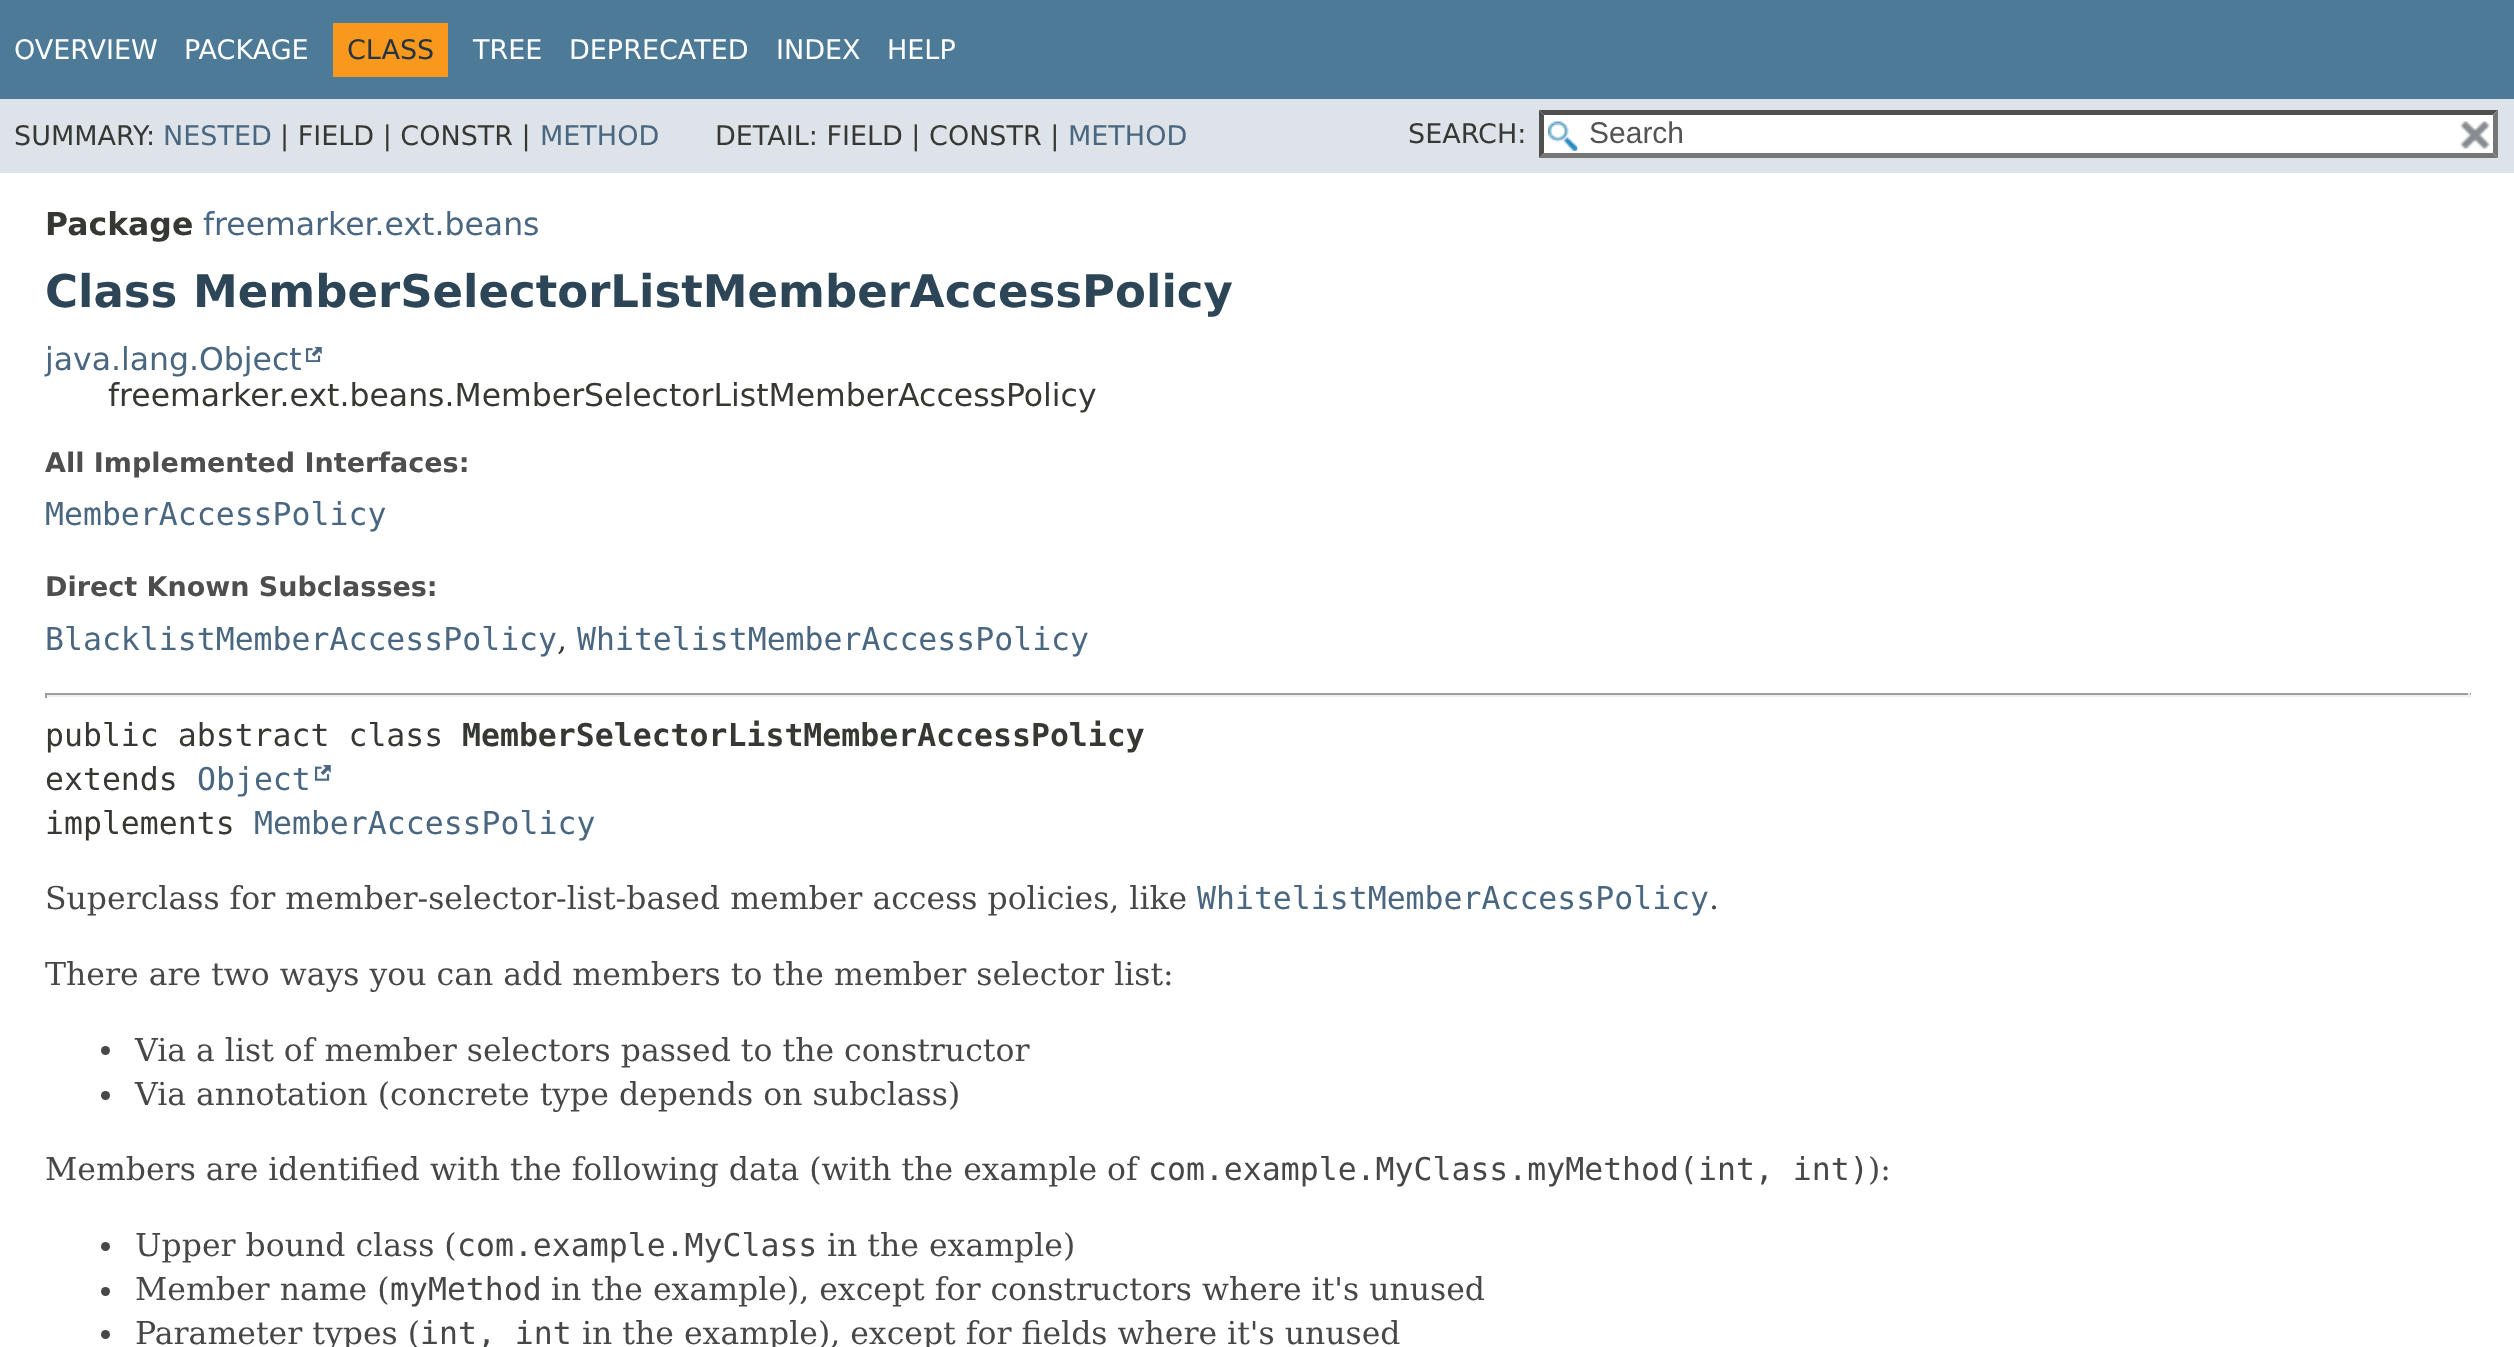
async function draw(canvas) {
  canvas.width = 2514
  canvas.height = 1347
  const ctx = canvas.getContext('2d')
  ctx.miterLimit = 4
  ctx.fontKerning = 'normal'
  async function loadImage(src) {
    const img = new Image()
    img.src = src
    await img.decode()
    return img
  }

  ctx.fillStyle = '#fff'
  ctx.fillRect(0, 0, 2514, 1347)
  ctx.fillStyle = '#4d7a97'
  ctx.fillRect(0, 0, 2514, 99)
  ctx.font = '27px DejaVu Sans'
  ctx.fillStyle = '#fff'
  ctx.fillText('OVERVIEW', 14, 59)
  ctx.fillText('PACKAGE', 184, 59)
  ctx.fillStyle = '#f8981d'
  ctx.fillRect(333, 23, 115, 54)
  ctx.fillStyle = '#253441'
  ctx.fillText('CLASS', 347, 59)
  ctx.fillStyle = '#fff'
  ctx.fillText('TREE', 473, 59)
  ctx.fillText('DEPRECATED', 569, 59)
  ctx.fillText('INDEX', 776, 59)
  ctx.fillText('HELP', 887, 59)
  ctx.fillStyle = '#dee3e9'
  ctx.fillRect(0, 99, 2514, 74)
  ctx.fillStyle = '#353833'
  ctx.fillText('SUMMARY:', 14, 145)
  ctx.fillStyle = '#4a6782'
  ctx.fillText('NESTED', 163, 145)
  ctx.fillStyle = '#353833'
  ctx.fillText('| FIELD | CONSTR |', 280, 145)
  ctx.fillStyle = '#4a6782'
  ctx.fillText('METHOD', 540, 145)
  ctx.fillStyle = '#353833'
  ctx.fillText('DETAIL: FIELD | CONSTR |', 715, 145)
  ctx.fillStyle = '#4a6782'
  ctx.fillText('METHOD', 1068, 145)
  ctx.fillStyle = '#353833'
  ctx.fillText('SEARCH:', 1408, 143)
  ctx.fillStyle = '#fff'
  ctx.fillRect(1539, 110, 959, 48)
  ctx.drawImage(await loadImage('image0.png'), 1548, 121, 30, 30)
  ctx.fillStyle = '#4f4f4f'
  ctx.beginPath()
  ctx.moveTo(1539, 110)
  ctx.lineTo(2498, 110)
  ctx.lineTo(2493, 115)
  ctx.lineTo(1544, 115)
  ctx.closePath()
  ctx.fill()
  ctx.fillStyle = '#767676'
  ctx.beginPath()
  ctx.moveTo(2498, 110)
  ctx.lineTo(2498, 158)
  ctx.lineTo(2493, 153)
  ctx.lineTo(2493, 115)
  ctx.closePath()
  ctx.fill()
  ctx.beginPath()
  ctx.moveTo(2498, 158)
  ctx.lineTo(1539, 158)
  ctx.lineTo(1544, 153)
  ctx.lineTo(2493, 153)
  ctx.closePath()
  ctx.fill()
  ctx.fillStyle = '#4f4f4f'
  ctx.beginPath()
  ctx.moveTo(1539, 158)
  ctx.lineTo(1539, 110)
  ctx.lineTo(1544, 115)
  ctx.lineTo(1544, 153)
  ctx.closePath()
  ctx.fill()
  ctx.font = '30px Liberation Sans'
  ctx.fillStyle = '#545454'
  ctx.fillText('Search', 1589, 143)
  ctx.drawImage(await loadImage('image1.png'), 2460, 121, 30, 28)
  ctx.font = 'bold 31.5px DejaVu Sans'
  ctx.fillStyle = '#353833'
  ctx.fillText('Package', 45, 235)
  ctx.font = '31.5px DejaVu Sans'
  ctx.fillStyle = '#4a6782'
  ctx.fillText('freemarker.ext.beans', 203, 235)
  ctx.font = 'bold 45px DejaVu Sans'
  ctx.fillStyle = '#2c4557'
  ctx.fillText('Class MemberSelectorListMemberAccessPolicy', 45, 307)
  ctx.font = '31.5px DejaVu Sans'
  ctx.fillStyle = '#4a6782'
  ctx.fillText('java.lang.Object', 45, 370)
  ctx.drawImage(await loadImage('image2.png'), 306, 347, 16, 15)
  ctx.fillStyle = '#353833'
  ctx.fillText('freemarker.ext.beans.MemberSelectorListMemberAccessPolicy', 108, 406)
  ctx.font = 'bold 27px DejaVu Sans'
  ctx.fillStyle = '#4e4e4e'
  ctx.fillText('All Implemented Interfaces:', 45, 472)
  ctx.font = '31.5px DejaVu Sans Mono'
  ctx.fillStyle = '#4a6782'
  ctx.fillText('MemberAccessPolicy', 45, 525)
  ctx.font = 'bold 27px DejaVu Sans'
  ctx.fillStyle = '#4e4e4e'
  ctx.fillText('Direct Known Subclasses:', 45, 596)
  ctx.font = '31.5px DejaVu Sans Mono'
  ctx.fillStyle = '#4a6782'
  ctx.fillText('BlacklistMemberAccessPolicy', 45, 650)
  ctx.font = '31.5px DejaVu Serif'
  ctx.fillStyle = '#353833'
  ctx.fillText(',', 557, 650)
  ctx.font = '31.5px DejaVu Sans Mono'
  ctx.fillStyle = '#4a6782'
  ctx.fillText('WhitelistMemberAccessPolicy', 577, 650)
  ctx.fillStyle = '#9f9f9f'
  ctx.fillRect(45, 693, 2426, 2)
  ctx.fillStyle = '#eee'
  ctx.fillRect(2468, 693, 2, 5)
  ctx.fillRect(45, 695, 2426, 2)
  ctx.fillStyle = '#9f9f9f'
  ctx.fillRect(45, 693, 2, 5)
  ctx.fillStyle = '#353833'
  ctx.fillText('public abstract class', 45, 746)
  ctx.font = 'bold 31.5px DejaVu Sans Mono'
  ctx.fillText('MemberSelectorListMemberAccessPolicy', 462, 746)
  ctx.font = '31.5px DejaVu Sans Mono'
  ctx.fillText('extends', 45, 790)
  ctx.fillStyle = '#4a6782'
  ctx.fillText('Object', 197, 790)
  ctx.drawImage(await loadImage('image3.png'), 315, 765, 16, 16)
  ctx.fillStyle = '#353833'
  ctx.fillText('implements', 45, 834)
  ctx.fillStyle = '#4a6782'
  ctx.fillText('MemberAccessPolicy', 254, 834)
  ctx.font = '31.5px DejaVu Serif'
  ctx.fillStyle = '#474747'
  ctx.fillText('Superclass for member-selector-list-based member access policies, like', 45, 909)
  ctx.font = '31.5px DejaVu Sans Mono'
  ctx.fillStyle = '#4a6782'
  ctx.fillText('WhitelistMemberAccessPolicy', 1197, 909)
  ctx.font = '31.5px DejaVu Serif'
  ctx.fillStyle = '#474747'
  ctx.fillText('.', 1709, 909)
  ctx.fillText('There are two ways you can add members to the member selector list:', 45, 985)
  ctx.beginPath()
  ctx.arc(105.5, 1050.5, 4.5, 0, 2 * Math.PI)
  ctx.fill()
  ctx.fillText('Via a list of member selectors passed to the constructor', 135, 1061)
  ctx.beginPath()
  ctx.arc(105.5, 1095.5, 4.5, 0, 2 * Math.PI)
  ctx.fill()
  ctx.fillText('Via annotation (concrete type depends on subclass)', 135, 1105)
  ctx.fillText('Members are identified with the following data (with the example of', 45, 1180)
  ctx.font = '31.5px DejaVu Sans Mono'
  ctx.fillText('com.example.MyClass.myMethod(int, int)', 1148, 1180)
  ctx.font = '31.5px DejaVu Serif'
  ctx.fillText('):', 1868, 1180)
  ctx.beginPath()
  ctx.arc(105.5, 1246.5, 4.5, 0, 2 * Math.PI)
  ctx.fill()
  ctx.fillText('Upper bound class (', 135, 1256)
  ctx.font = '31.5px DejaVu Sans Mono'
  ctx.fillText('com.example.MyClass', 457, 1256)
  ctx.font = '31.5px DejaVu Serif'
  ctx.fillText('in the example)', 827, 1256)
  ctx.beginPath()
  ctx.arc(105.5, 1291.5, 4.5, 0, 2 * Math.PI)
  ctx.fill()
  ctx.fillText('Member name (', 135, 1300)
  ctx.font = '31.5px DejaVu Sans Mono'
  ctx.fillText('myMethod', 390, 1300)
  ctx.font = '31.5px DejaVu Serif'
  ctx.fillText('in the example), except for constructors where it\'s unused', 551, 1300)
  ctx.beginPath()
  ctx.arc(105.5, 1334.5, 4.5, 0, 2 * Math.PI)
  ctx.fill()
  ctx.fillText('Parameter types (', 135, 1344)
  ctx.font = '31.5px DejaVu Sans Mono'
  ctx.fillText('int, int', 420, 1344)
  ctx.font = '31.5px DejaVu Serif'
  ctx.fillText('in the example), except for fields where it\'s unused', 582, 1344)
}

draw(document.querySelector('canvas'))
